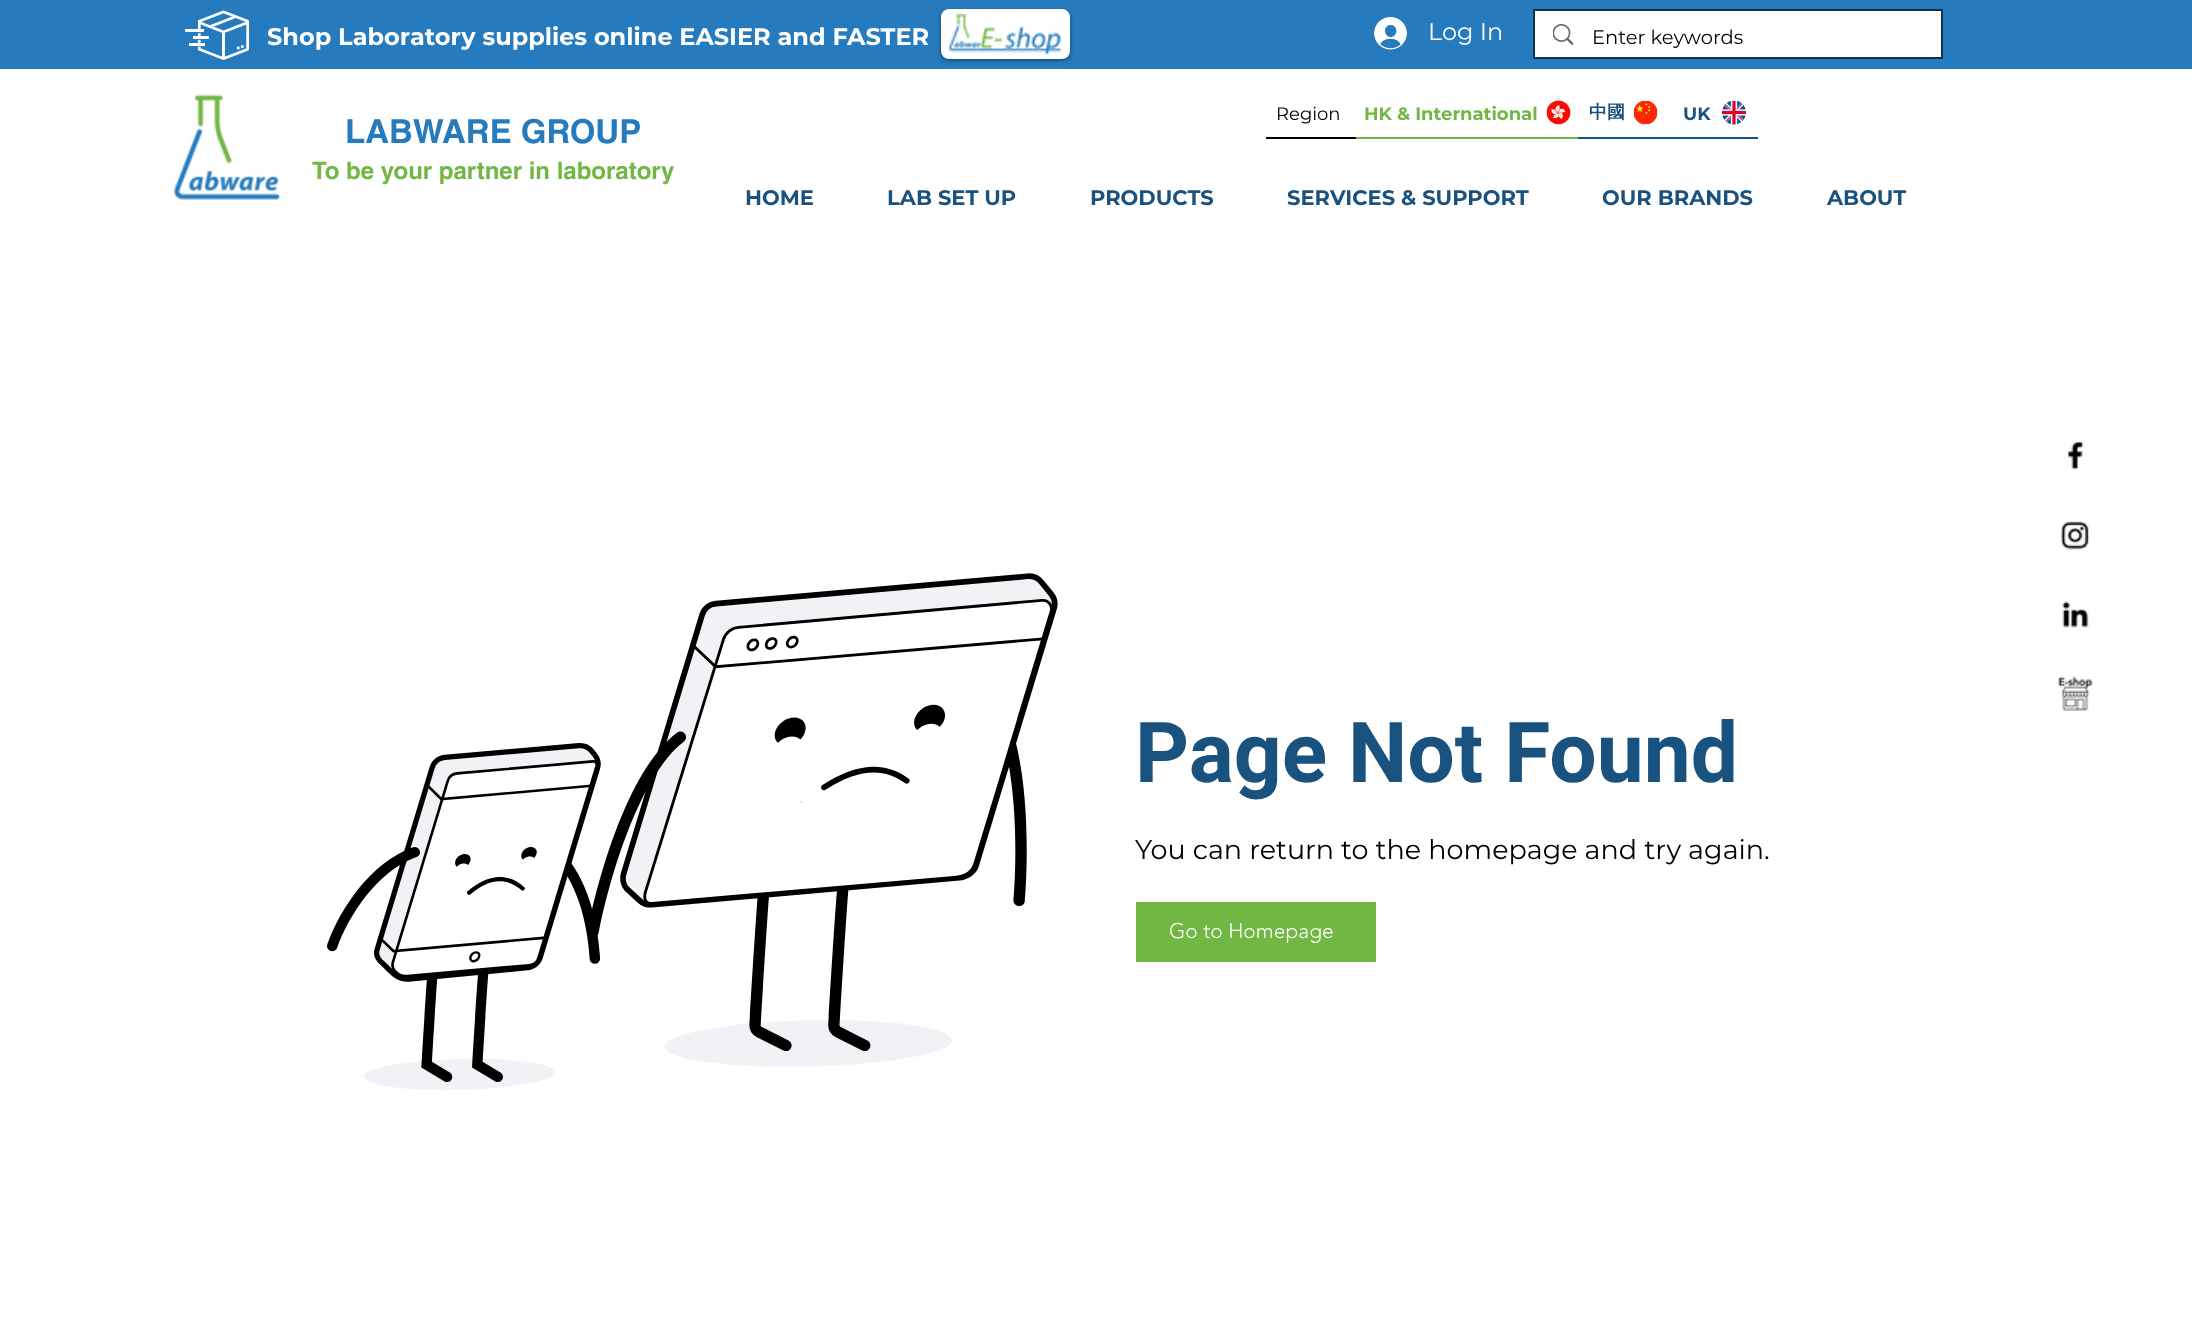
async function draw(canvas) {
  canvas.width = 2192
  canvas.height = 1321
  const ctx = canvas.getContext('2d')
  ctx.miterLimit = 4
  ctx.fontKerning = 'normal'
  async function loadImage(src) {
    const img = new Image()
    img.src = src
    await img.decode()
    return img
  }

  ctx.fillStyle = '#fff'
  ctx.fillRect(0, 0, 2192, 1321)
  ctx.fillStyle = '#267bbe'
  ctx.fillRect(0, 0, 2192, 69)
  ctx.drawImage(await loadImage('image0.png'), 185, 10, 64, 50)
  ctx.font = 'bold 24px Montserrat'
  ctx.fillStyle = '#fff'
  ctx.fillText('Shop Laboratory supplies online EASIER and FASTER', 267, 45)
  ctx.fillStyle = '#00000080'
  ctx.filter = 'blur(2px)'
  ctx.beginPath()
  ctx.roundRect(941, 11, 129, 49, 8)
  ctx.fill()
  ctx.filter = 'none'
  ctx.fillStyle = '#fff'
  ctx.beginPath()
  ctx.roundRect(942.5, 10.5, 126, 47, 6.5)
  ctx.fill()
  ctx.strokeStyle = '#fff'
  ctx.lineWidth = 3
  ctx.stroke()
  ctx.drawImage(await loadImage('image1.png'), 947, 13, 115, 42)
  ctx.drawImage(await loadImage('image2.png'), 1374, 17, 33, 33)
  ctx.font = '24px Montserrat'
  ctx.fillText('Log In', 1428, 40)
  ctx.strokeStyle = '#0f314c'
  ctx.lineWidth = 2
  ctx.strokeRect(1534, 10, 408, 48)
  ctx.fillRect(1535, 11, 406, 46)
  ctx.drawImage(await loadImage('image3.png'), 1553, 24, 21, 21)
  ctx.font = '19.5px Montserrat'
  ctx.fillStyle = '#000'
  ctx.fillText('Enter keywords', 1592, 44)
  ctx.fillRect(1266, 137, 90, 2)
  ctx.font = '18px Montserrat'
  ctx.fillText('Region', 1276, 120)
  ctx.fillStyle = '#71b744'
  ctx.fillRect(1356, 137, 222, 2)
  ctx.font = 'bold 18px Montserrat'
  ctx.fillText('HK & International', 1364, 120)
  ctx.drawImage(await loadImage('image4.png'), 1546, 100, 25, 25)
  ctx.fillStyle = '#19527f'
  ctx.fillRect(1578, 137, 180, 2)
  ctx.font = 'bold 18px WenQuanYi Zen Hei'
  ctx.fillText('中國', 1589, 118)
  ctx.drawImage(await loadImage('image5.png'), 1634, 101, 24, 24)
  ctx.font = 'bold 18px Montserrat'
  ctx.fillText('UK', 1683, 120)
  ctx.drawImage(await loadImage('image6.png'), 1722, 101, 24, 24)
  ctx.drawImage(await loadImage('image7.png'), 173, 94, 108, 106)
  ctx.font = 'bold 33px helvetica'
  ctx.fillStyle = '#267bbe'
  ctx.fillText('LABWARE GROUP', 345, 143)
  ctx.font = 'bold 24px helvetica'
  ctx.fillStyle = '#71b744'
  ctx.fillText('To be your partner in laboratory', 312, 179)
  ctx.font = 'bold 21px Montserrat'
  ctx.fillStyle = '#19527f'
  ctx.fillText('HOME', 745, 205)
  ctx.fillText('LAB SET UP', 887, 205)
  ctx.fillText('PRODUCTS', 1090, 205)
  ctx.fillText('SERVICES & SUPPORT', 1287, 205)
  ctx.fillText('OUR BRANDS', 1602, 205)
  ctx.fillText('ABOUT', 1827, 205)
  ctx.drawImage(await loadImage('image8.png'), 2067, 441, 17, 29)
  ctx.drawImage(await loadImage('image9.png'), 2060, 521, 29, 29)
  ctx.drawImage(await loadImage('image10.png'), 2062, 601, 27, 27)
  ctx.drawImage(await loadImage('image11.png'), 2058, 676, 35, 35)
  ctx.drawImage(await loadImage('image12.png'), 327, 573, 731, 518)
  ctx.font = 'bold 84px Roboto'
  ctx.fillText('Page Not Found', 1135, 782)
  ctx.font = '27px Montserrat'
  ctx.fillStyle = '#000'
  ctx.fillText('You can return to the homepage and try again.', 1135, 859)
  ctx.fillStyle = '#71b744'
  ctx.fillRect(1136, 902, 240, 60)
  ctx.font = '300 21px "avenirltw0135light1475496"'
  ctx.fillStyle = '#fff'
  ctx.fillText('Go to Homepage', 1169, 938)
}

draw(document.querySelector('canvas'))
